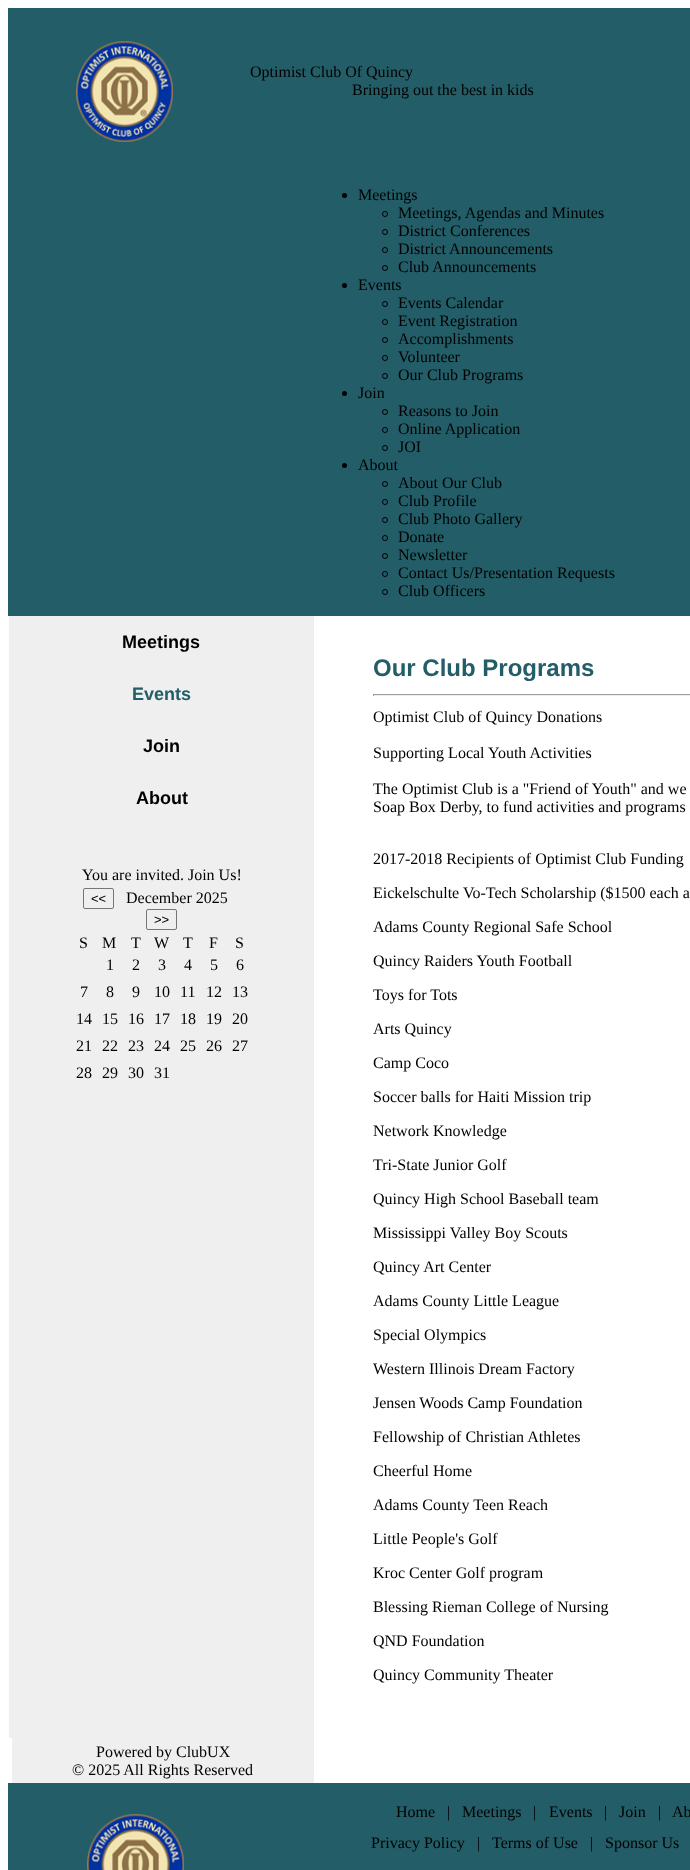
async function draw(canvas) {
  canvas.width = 690
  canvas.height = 1870
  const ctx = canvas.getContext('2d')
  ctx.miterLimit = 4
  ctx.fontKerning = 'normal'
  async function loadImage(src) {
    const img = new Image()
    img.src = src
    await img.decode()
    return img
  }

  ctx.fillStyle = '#fff'
  ctx.fillRect(0, 0, 690, 1870)
  ctx.fillStyle = '#235d67'
  ctx.fillRect(8, 8, 682, 608)
  ctx.drawImage(await loadImage('image0.png'), 76, 41, 97, 101)
  ctx.font = '16px Liberation Serif'
  ctx.fillStyle = '#000'
  ctx.fillText('Optimist Club Of Quincy', 250, 77)
  ctx.fillText('Bringing out the best in kids', 352, 95)
  ctx.beginPath()
  ctx.arc(344.5, 195.5, 2.5, 0, 2 * Math.PI)
  ctx.fill()
  ctx.fillText('Meetings', 358, 200)
  ctx.beginPath()
  ctx.arc(385, 214, 2.5, 0, 2 * Math.PI)
  ctx.strokeStyle = '#000'
  ctx.stroke()
  ctx.fillText('Meetings, Agendas and Minutes', 398, 218)
  ctx.beginPath()
  ctx.arc(385, 232, 2.5, 0, 2 * Math.PI)
  ctx.stroke()
  ctx.fillText('District Conferences', 398, 236)
  ctx.beginPath()
  ctx.arc(385, 250, 2.5, 0, 2 * Math.PI)
  ctx.stroke()
  ctx.fillText('District Announcements', 398, 254)
  ctx.beginPath()
  ctx.arc(385, 268, 2.5, 0, 2 * Math.PI)
  ctx.stroke()
  ctx.fillText('Club Announcements', 398, 272)
  ctx.beginPath()
  ctx.arc(344.5, 285.5, 2.5, 0, 2 * Math.PI)
  ctx.fill()
  ctx.fillText('Events', 358, 290)
  ctx.beginPath()
  ctx.arc(385, 304, 2.5, 0, 2 * Math.PI)
  ctx.stroke()
  ctx.fillText('Events Calendar', 398, 308)
  ctx.beginPath()
  ctx.arc(385, 322, 2.5, 0, 2 * Math.PI)
  ctx.stroke()
  ctx.fillText('Event Registration', 398, 326)
  ctx.beginPath()
  ctx.arc(385, 340, 2.5, 0, 2 * Math.PI)
  ctx.stroke()
  ctx.fillText('Accomplishments', 398, 344)
  ctx.beginPath()
  ctx.arc(385, 358, 2.5, 0, 2 * Math.PI)
  ctx.stroke()
  ctx.fillText('Volunteer', 398, 362)
  ctx.beginPath()
  ctx.arc(385, 376, 2.5, 0, 2 * Math.PI)
  ctx.stroke()
  ctx.fillText('Our Club Programs', 398, 380)
  ctx.beginPath()
  ctx.arc(344.5, 393.5, 2.5, 0, 2 * Math.PI)
  ctx.fill()
  ctx.fillText('Join', 358, 398)
  ctx.beginPath()
  ctx.arc(385, 412, 2.5, 0, 2 * Math.PI)
  ctx.stroke()
  ctx.fillText('Reasons to Join', 398, 416)
  ctx.beginPath()
  ctx.arc(385, 430, 2.5, 0, 2 * Math.PI)
  ctx.stroke()
  ctx.fillText('Online Application', 398, 434)
  ctx.beginPath()
  ctx.arc(385, 448, 2.5, 0, 2 * Math.PI)
  ctx.stroke()
  ctx.fillText('JOI', 398, 452)
  ctx.beginPath()
  ctx.arc(344.5, 465.5, 2.5, 0, 2 * Math.PI)
  ctx.fill()
  ctx.fillText('About', 358, 470)
  ctx.beginPath()
  ctx.arc(385, 484, 2.5, 0, 2 * Math.PI)
  ctx.stroke()
  ctx.fillText('About Our Club', 398, 488)
  ctx.beginPath()
  ctx.arc(385, 502, 2.5, 0, 2 * Math.PI)
  ctx.stroke()
  ctx.fillText('Club Profile', 398, 506)
  ctx.beginPath()
  ctx.arc(385, 520, 2.5, 0, 2 * Math.PI)
  ctx.stroke()
  ctx.fillText('Club Photo Gallery', 398, 524)
  ctx.beginPath()
  ctx.arc(385, 538, 2.5, 0, 2 * Math.PI)
  ctx.stroke()
  ctx.fillText('Donate', 398, 542)
  ctx.beginPath()
  ctx.arc(385, 556, 2.5, 0, 2 * Math.PI)
  ctx.stroke()
  ctx.fillText('Newsletter', 398, 560)
  ctx.beginPath()
  ctx.arc(385, 574, 2.5, 0, 2 * Math.PI)
  ctx.stroke()
  ctx.fillText('Contact Us/Presentation Requests', 398, 578)
  ctx.beginPath()
  ctx.arc(385, 592, 2.5, 0, 2 * Math.PI)
  ctx.stroke()
  ctx.fillText('Club Officers', 398, 596)
  ctx.fillStyle = '#efefef'
  ctx.fillRect(9, 616, 305, 1122)
  ctx.font = 'bold 18px Liberation Sans'
  ctx.fillStyle = '#000'
  ctx.fillText('Meetings', 122, 648)
  ctx.fillStyle = '#235d67'
  ctx.fillText('Events', 132, 700)
  ctx.fillStyle = '#000'
  ctx.fillText('Join', 143, 752)
  ctx.fillText('About', 136, 804)
  ctx.font = '16px Liberation Serif'
  ctx.fillText('You are invited. Join Us!', 82, 880)
  ctx.beginPath()
  ctx.roundRect(83.5, 888.5, 30, 20, 1.5)
  ctx.strokeStyle = '#767676'
  ctx.stroke()
  ctx.font = '13px Liberation Sans'
  ctx.fillText('<<', 91, 903)
  ctx.font = '16px Liberation Serif'
  ctx.fillText('December 2025', 126, 903)
  ctx.beginPath()
  ctx.roundRect(146.5, 909.5, 30, 20, 1.5)
  ctx.stroke()
  ctx.font = '13px Liberation Sans'
  ctx.fillText('>>', 154, 924)
  ctx.font = '16px Liberation Serif'
  ctx.fillText('S', 79, 948)
  ctx.fillText('M', 102, 948)
  ctx.fillText('T', 131, 948)
  ctx.fillText('W', 154, 948)
  ctx.fillText('T', 183, 948)
  ctx.fillText('F', 209, 948)
  ctx.fillText('S', 235, 948)
  ctx.fillText('1', 106, 970)
  ctx.fillText('2', 132, 970)
  ctx.fillText('3', 158, 970)
  ctx.fillText('4', 184, 970)
  ctx.fillText('5', 210, 970)
  ctx.fillText('6', 236, 970)
  ctx.fillText('7', 80, 997)
  ctx.fillText('8', 106, 997)
  ctx.fillText('9', 132, 997)
  ctx.fillText('10', 154, 997)
  ctx.fillText('11', 180, 997)
  ctx.fillText('12', 206, 997)
  ctx.fillText('13', 232, 997)
  ctx.fillText('14', 76, 1024)
  ctx.fillText('15', 102, 1024)
  ctx.fillText('16', 128, 1024)
  ctx.fillText('17', 154, 1024)
  ctx.fillText('18', 180, 1024)
  ctx.fillText('19', 206, 1024)
  ctx.fillText('20', 232, 1024)
  ctx.fillText('21', 76, 1051)
  ctx.fillText('22', 102, 1051)
  ctx.fillText('23', 128, 1051)
  ctx.fillText('24', 154, 1051)
  ctx.fillText('25', 180, 1051)
  ctx.fillText('26', 206, 1051)
  ctx.fillText('27', 232, 1051)
  ctx.fillText('28', 76, 1078)
  ctx.fillText('29', 102, 1078)
  ctx.fillText('30', 128, 1078)
  ctx.fillText('31', 154, 1078)
  ctx.font = 'bold 24px Liberation Sans'
  ctx.fillStyle = '#235d67'
  ctx.fillText('Our Club Programs', 373, 676)
  ctx.fillStyle = '#9f9f9f'
  ctx.fillRect(373, 694, 317, 1)
  ctx.fillStyle = '#eee'
  ctx.fillRect(373, 695, 317, 1)
  ctx.fillStyle = '#9f9f9f'
  ctx.fillRect(373, 694, 1, 2)
  ctx.font = '16px Liberation Serif'
  ctx.fillStyle = '#000'
  ctx.fillText('Optimist Club of Quincy Donations', 373, 722)
  ctx.fillText('Supporting Local Youth Activities', 373, 758)
  ctx.fillText('The Optimist Club is a "Friend of Youth" and we', 373, 794)
  ctx.fillText('Soap Box Derby, to fund activities and programs', 373, 812)
  ctx.fillText('2017-2018 Recipients of Optimist Club Funding', 373, 864)
  ctx.fillText('Eickelschulte Vo-Tech Scholarship ($1500 each a', 373, 898)
  ctx.fillText('Adams County Regional Safe School', 373, 932)
  ctx.fillText('Quincy Raiders Youth Football', 373, 966)
  ctx.fillText('Toys for Tots', 373, 1000)
  ctx.fillText('Arts Quincy', 373, 1034)
  ctx.fillText('Camp Coco', 373, 1068)
  ctx.fillText('Soccer balls for Haiti Mission trip', 373, 1102)
  ctx.fillText('Network Knowledge', 373, 1136)
  ctx.fillText('Tri-State Junior Golf', 373, 1170)
  ctx.fillText('Quincy High School Baseball team', 373, 1204)
  ctx.fillText('Mississippi Valley Boy Scouts', 373, 1238)
  ctx.fillText('Quincy Art Center', 373, 1272)
  ctx.fillText('Adams County Little League', 373, 1306)
  ctx.fillText('Special Olympics', 373, 1340)
  ctx.fillText('Western Illinois Dream Factory', 373, 1374)
  ctx.fillText('Jensen Woods Camp Foundation', 373, 1408)
  ctx.fillText('Fellowship of Christian Athletes', 373, 1442)
  ctx.fillText('Cheerful Home', 373, 1476)
  ctx.fillText('Adams County Teen Reach', 373, 1510)
  ctx.fillText('Little People\'s Golf', 373, 1544)
  ctx.fillText('Kroc Center Golf program', 373, 1578)
  ctx.fillText('Blessing Rieman College of Nursing', 373, 1612)
  ctx.fillText('QND Foundation', 373, 1646)
  ctx.fillText('Quincy Community Theater', 373, 1680)
  ctx.fillStyle = '#efefef'
  ctx.fillRect(12, 1738, 302, 45)
  ctx.fillStyle = '#000'
  ctx.fillText('Powered by ClubUX', 96, 1757)
  ctx.fillText('© 2025 All Rights Reserved', 72, 1775)
  ctx.fillStyle = '#235d67'
  ctx.fillRect(8, 1783, 682, 87)
  ctx.drawImage(await loadImage('image1.png'), 87, 1814, 97, 56)
  ctx.fillStyle = '#000'
  ctx.fillText('Home', 396, 1817)
  ctx.fillText('|', 447, 1817)
  ctx.fillText('Meetings', 462, 1817)
  ctx.fillText('|', 533, 1817)
  ctx.fillText('Events', 549, 1817)
  ctx.fillText('|', 604, 1817)
  ctx.fillText('Join', 619, 1817)
  ctx.fillText('|', 658, 1817)
  ctx.fillText('Ab', 672, 1817)
  ctx.fillText('Privacy Policy', 371, 1848)
  ctx.fillText('|', 477, 1848)
  ctx.fillText('Terms of Use', 492, 1848)
  ctx.fillText('|', 590, 1848)
  ctx.fillText('Sponsor Us', 605, 1848)
}

draw(document.querySelector('canvas'))
